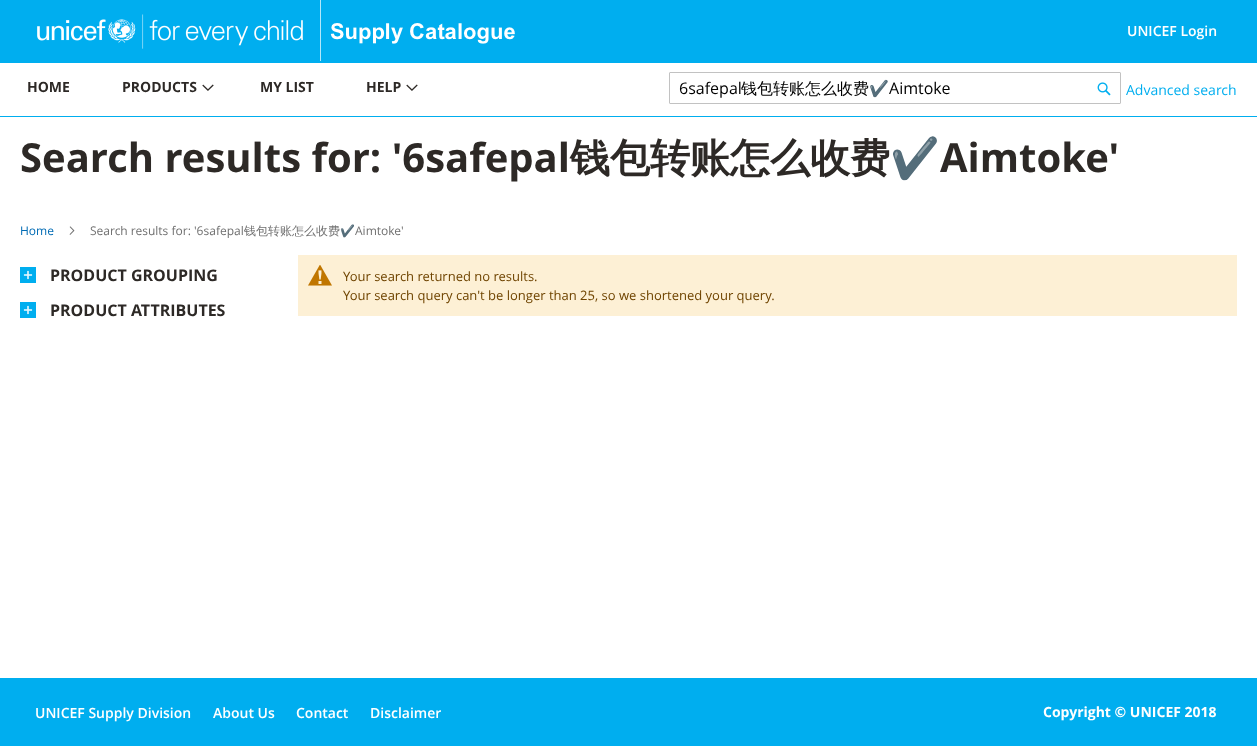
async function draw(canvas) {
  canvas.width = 1257
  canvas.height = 747
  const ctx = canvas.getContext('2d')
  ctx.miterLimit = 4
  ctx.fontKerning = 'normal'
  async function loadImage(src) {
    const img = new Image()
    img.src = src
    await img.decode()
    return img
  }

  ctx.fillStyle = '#fff'
  ctx.fillRect(0, 0, 1257, 747)
  ctx.fillStyle = '#00aeef'
  ctx.fillRect(0, 0, 1257, 63)
  ctx.fillStyle = '#b3e7fa'
  ctx.fillRect(320, 0, 1, 61)
  ctx.drawImage(await loadImage('image0.png'), 37, 14, 266, 35)
  ctx.drawImage(await loadImage('image1.png'), 330, 23, 185, 21)
  ctx.font = '600 14px Open Sans'
  ctx.fillStyle = '#fff'
  ctx.fillText('UNICEF Login', 1127, 36)
  ctx.fillStyle = '#00aeef'
  ctx.fillRect(0, 116, 1257, 1)
  ctx.font = 'bold 14px Open Sans'
  ctx.fillStyle = '#2d2926'
  ctx.fillText('HOME', 27, 92)
  ctx.fillText('PRODUCTS', 122, 92)
  ctx.drawImage(await loadImage('image2.png'), 202, 84, 12, 7)
  ctx.fillText('MY LIST', 260, 92)
  ctx.fillText('HELP', 366, 92)
  ctx.drawImage(await loadImage('image2.png'), 406, 84, 12, 7)
  ctx.beginPath()
  ctx.roundRect(669.5, 72.5, 451, 31, 0.5)
  ctx.strokeStyle = '#c2c2c2'
  ctx.stroke()
  ctx.font = '16px Open Sans'
  ctx.fillStyle = '#000'
  ctx.fillText('6safepal', 679, 94)
  ctx.font = '500 16px WenQuanYi Zen Hei'
  ctx.fillText('钱包转账怎么收费', 741, 94)
  ctx.font = '16px Noto Color Emoji'
  ctx.fillText('✔️', 869, 94)
  ctx.font = '16px Open Sans'
  ctx.fillText('Aimtoke', 889, 94)
  ctx.drawImage(await loadImage('image3.png'), 1097, 82, 14, 14)
  ctx.font = '14px Open Sans'
  ctx.fillStyle = '#00aeef'
  ctx.fillText('Advanced search', 1126, 95)
  ctx.font = 'bold 40px Open Sans'
  ctx.fillStyle = '#2d2926'
  ctx.fillText('Search results for: \'6safepal', 20, 172)
  ctx.font = 'bold 40px WenQuanYi Zen Hei'
  ctx.fillText('钱包转账怎么收费', 570, 172)
  ctx.font = 'bold 40px Noto Color Emoji'
  ctx.fillText('✔️', 890, 172)
  ctx.font = 'bold 40px Open Sans'
  ctx.fillText('Aimtoke\'', 940, 172)
  ctx.font = '12px Open Sans'
  ctx.fillStyle = '#006bb4'
  ctx.fillText('Home', 20, 235)
  ctx.drawImage(await loadImage('image4.png'), 69, 226, 6, 9)
  ctx.fillStyle = '#707070'
  ctx.fillText('Search results for: \'6safepal', 90, 235)
  ctx.font = '500 12px WenQuanYi Zen Hei'
  ctx.fillText('钱包转账怎么收费', 244, 235)
  ctx.font = '12px Noto Color Emoji'
  ctx.fillText('✔️', 340, 235)
  ctx.font = '12px Open Sans'
  ctx.fillText('Aimtoke\'', 355, 235)
  ctx.drawImage(await loadImage('image5.png'), 20, 267, 16, 16)
  ctx.font = 'bold 16px Open Sans'
  ctx.fillStyle = '#2d2926'
  ctx.fillText('PRODUCT GROUPING', 50, 281)
  ctx.drawImage(await loadImage('image5.png'), 20, 302, 16, 16)
  ctx.fillText('PRODUCT ATTRIBUTES', 50, 316)
  ctx.fillStyle = '#fdf0d5'
  ctx.fillRect(298, 255, 939, 61)
  ctx.drawImage(await loadImage('image6.png'), 308, 265, 24, 21)
  ctx.font = '13px Open Sans'
  ctx.fillStyle = '#6f4400'
  ctx.fillText('Your search returned no results.', 343, 281)
  ctx.fillText('Your search query can\'t be longer than 25, so we shortened your query.', 343, 300)
  ctx.fillStyle = '#00aeef'
  ctx.fillRect(0, 678, 1257, 68)
  ctx.font = '600 14px Open Sans'
  ctx.fillStyle = '#fff'
  ctx.fillText('UNICEF Supply Division', 35, 718)
  ctx.fillText('About Us', 213, 718)
  ctx.fillText('Contact', 296, 718)
  ctx.fillText('Disclaimer', 370, 718)
  ctx.font = 'bold 14px Open Sans'
  ctx.fillText('Copyright © UNICEF 2018', 1043, 717)
}

draw(document.querySelector('canvas'))
